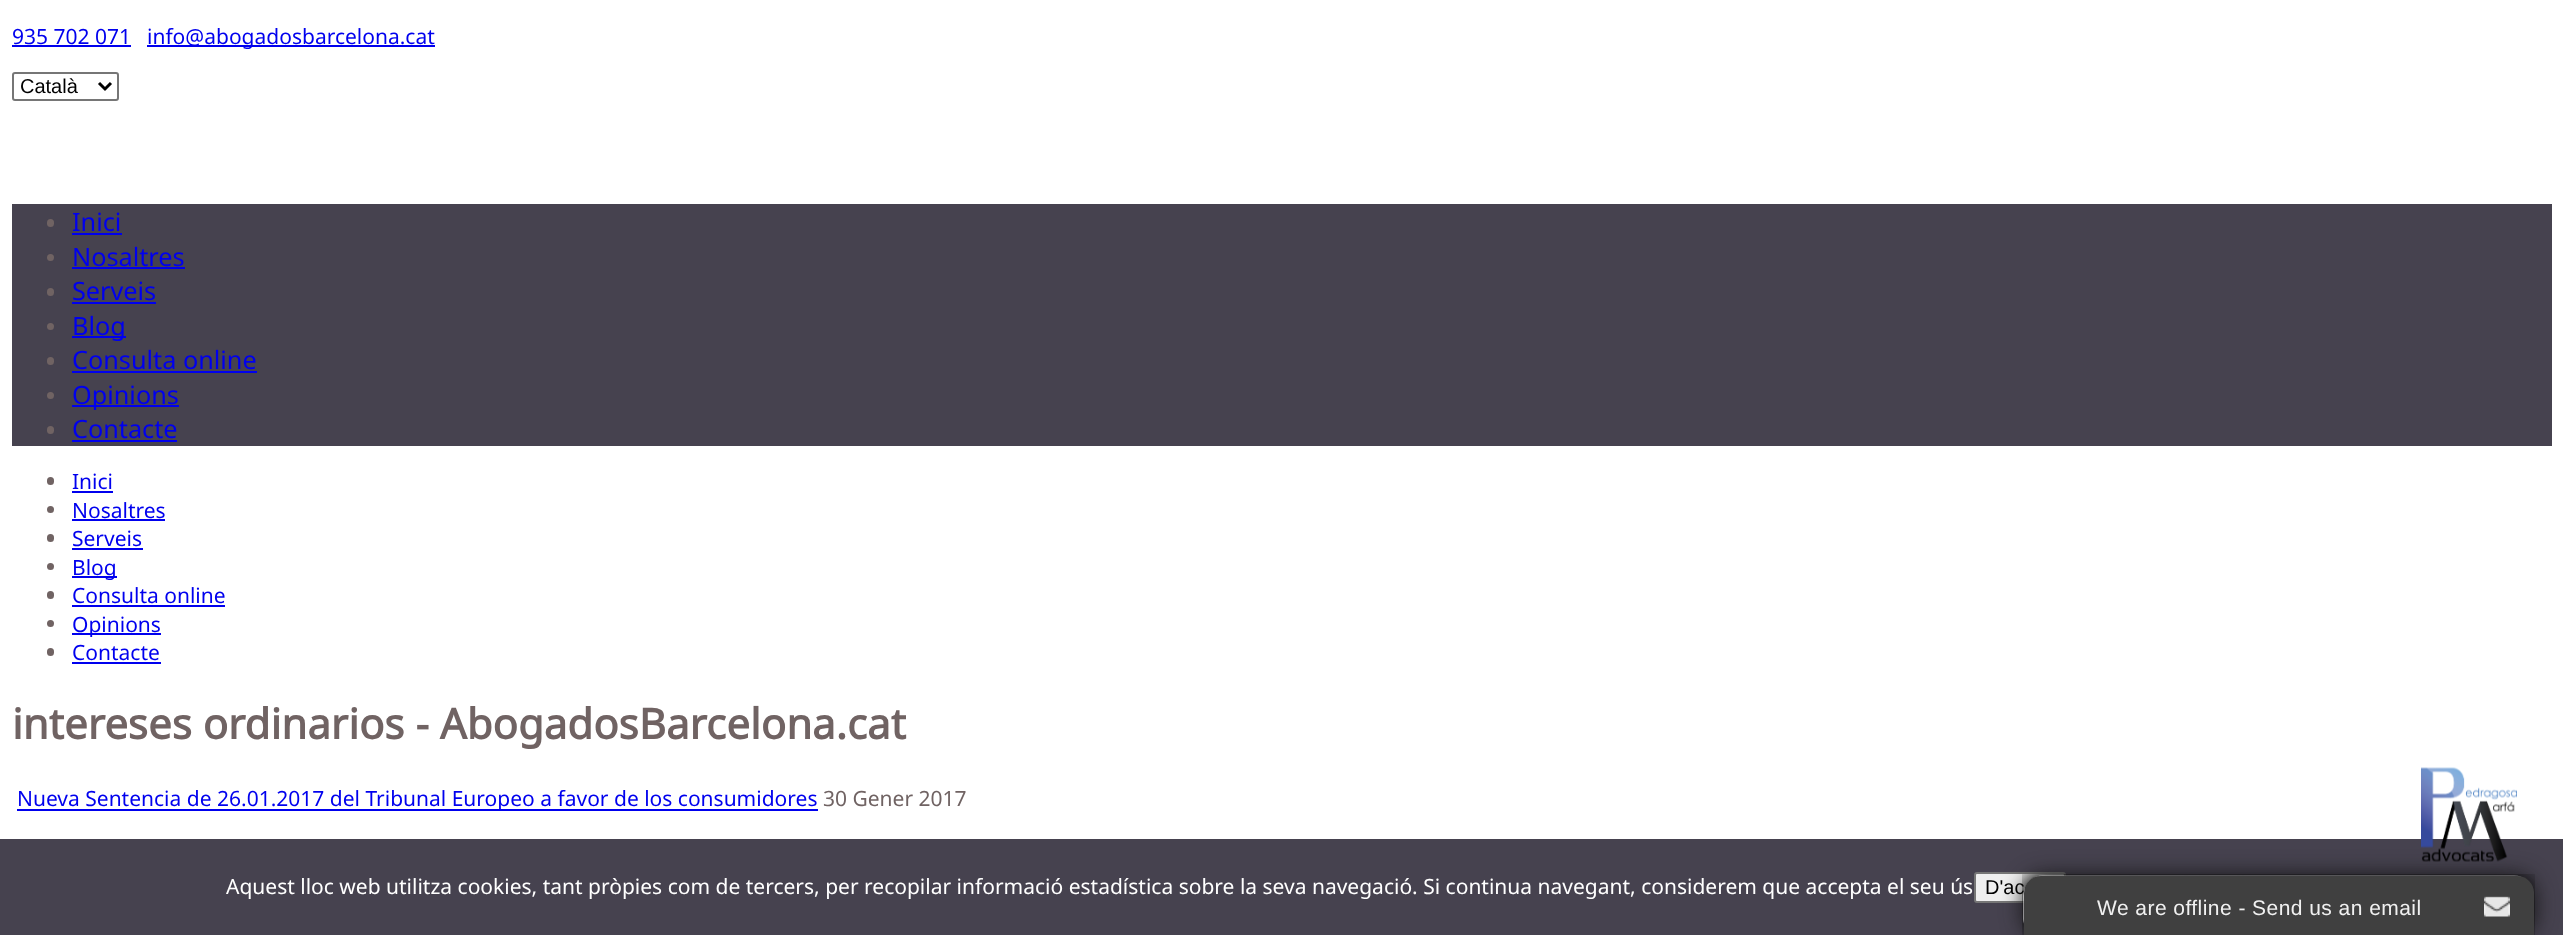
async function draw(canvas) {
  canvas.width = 2563
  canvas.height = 935
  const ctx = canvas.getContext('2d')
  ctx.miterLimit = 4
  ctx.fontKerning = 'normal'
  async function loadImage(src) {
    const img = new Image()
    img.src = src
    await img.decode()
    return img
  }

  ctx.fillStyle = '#fff'
  ctx.fillRect(0, 0, 2563, 935)
  ctx.font = '21px Noto Sans'
  ctx.fillStyle = '#00e'
  ctx.fillText('935 702 071', 12, 44)
  ctx.fillRect(12, 45, 119, 2)
  ctx.fillRect(147, 45, 288, 2)
  ctx.fillText('info@abogadosbarcelona.cat', 147, 44)
  ctx.beginPath()
  ctx.roundRect(13, 73, 105, 27, 2)
  ctx.strokeStyle = '#767676'
  ctx.lineWidth = 2
  ctx.stroke()
  ctx.beginPath()
  ctx.moveTo(99, 83)
  ctx.lineTo(105, 89)
  ctx.lineTo(111, 83)
  ctx.strokeStyle = '#000'
  ctx.lineWidth = 3
  ctx.stroke()
  ctx.font = '20px Liberation Sans'
  ctx.fillStyle = '#000'
  ctx.fillText('Català', 20, 93)
  ctx.fillStyle = '#46424f'
  ctx.fillRect(12, 204, 2540, 242)
  ctx.fillStyle = '#706363'
  ctx.beginPath()
  ctx.roundRect(47, 219, 7, 8, 3.5)
  ctx.fill()
  ctx.font = '25.25px Noto Sans'
  ctx.fillStyle = '#00e'
  ctx.fillText('Inici', 72, 231)
  ctx.fillRect(72, 233, 50, 2)
  ctx.fillStyle = '#706363'
  ctx.beginPath()
  ctx.arc(50.5, 257.5, 3.5, 0, 2 * Math.PI)
  ctx.fill()
  ctx.fillStyle = '#00e'
  ctx.fillText('Nosaltres', 72, 266)
  ctx.fillRect(72, 267, 113, 2)
  ctx.fillStyle = '#706363'
  ctx.beginPath()
  ctx.roundRect(47, 288, 7, 8, 3.5)
  ctx.fill()
  ctx.fillStyle = '#00e'
  ctx.fillText('Serveis', 72, 300)
  ctx.fillRect(72, 302, 84, 2)
  ctx.fillStyle = '#706363'
  ctx.beginPath()
  ctx.arc(50.5, 326.5, 3.5, 0, 2 * Math.PI)
  ctx.fill()
  ctx.fillStyle = '#00e'
  ctx.fillRect(72, 336, 54, 2)
  ctx.fillText('Blog', 72, 335)
  ctx.fillStyle = '#706363'
  ctx.beginPath()
  ctx.roundRect(47, 357, 7, 8, 3.5)
  ctx.fill()
  ctx.fillStyle = '#00e'
  ctx.fillText('Consulta online', 72, 369)
  ctx.fillRect(72, 371, 185, 2)
  ctx.fillStyle = '#706363'
  ctx.beginPath()
  ctx.arc(50.5, 395.5, 3.5, 0, 2 * Math.PI)
  ctx.fill()
  ctx.fillStyle = '#00e'
  ctx.fillRect(72, 405, 107, 2)
  ctx.fillText('Opinions', 72, 404)
  ctx.fillStyle = '#706363'
  ctx.beginPath()
  ctx.roundRect(47, 426, 7, 8, 3.5)
  ctx.fill()
  ctx.fillStyle = '#00e'
  ctx.fillText('Contacte', 72, 438)
  ctx.fillRect(72, 440, 105, 2)
  ctx.fillStyle = '#706363'
  ctx.beginPath()
  ctx.roundRect(47, 477, 7, 8, 3.5)
  ctx.fill()
  ctx.font = '21px Noto Sans'
  ctx.fillStyle = '#00e'
  ctx.fillText('Inici', 72, 489)
  ctx.fillRect(72, 491, 41, 2)
  ctx.fillStyle = '#706363'
  ctx.beginPath()
  ctx.arc(50.5, 509.5, 3.5, 0, 2 * Math.PI)
  ctx.fill()
  ctx.fillStyle = '#00e'
  ctx.fillText('Nosaltres', 72, 518)
  ctx.fillRect(72, 519, 93, 2)
  ctx.fillStyle = '#706363'
  ctx.beginPath()
  ctx.roundRect(47, 534, 7, 8, 3.5)
  ctx.fill()
  ctx.fillStyle = '#00e'
  ctx.fillText('Serveis', 72, 546)
  ctx.fillRect(72, 548, 71, 2)
  ctx.fillStyle = '#706363'
  ctx.beginPath()
  ctx.arc(50.5, 566.5, 3.5, 0, 2 * Math.PI)
  ctx.fill()
  ctx.fillStyle = '#00e'
  ctx.fillRect(72, 576, 45, 2)
  ctx.fillText('Blog', 72, 575)
  ctx.fillStyle = '#706363'
  ctx.beginPath()
  ctx.roundRect(47, 591, 7, 8, 3.5)
  ctx.fill()
  ctx.fillStyle = '#00e'
  ctx.fillText('Consulta online', 72, 603)
  ctx.fillRect(72, 605, 153, 2)
  ctx.fillStyle = '#706363'
  ctx.beginPath()
  ctx.arc(50.5, 623.5, 3.5, 0, 2 * Math.PI)
  ctx.fill()
  ctx.fillStyle = '#00e'
  ctx.fillRect(72, 633, 89, 2)
  ctx.fillText('Opinions', 72, 632)
  ctx.fillStyle = '#706363'
  ctx.beginPath()
  ctx.roundRect(47, 648, 7, 8, 3.5)
  ctx.fill()
  ctx.fillStyle = '#00e'
  ctx.fillText('Contacte', 72, 660)
  ctx.fillRect(72, 662, 89, 2)
  ctx.font = 'bold 42px Noto Sans'
  ctx.fillStyle = '#706363'
  ctx.fillText('intereses ordinarios - AbogadosBarcelona.cat', 12, 739)
  ctx.fillStyle = '#00e'
  ctx.fillRect(17, 809, 801, 2)
  ctx.font = '21px Noto Sans'
  ctx.fillText('Nueva Sentencia de 26.01.2017 del Tribunal Europeo a favor de los consumidores', 17, 806)
  ctx.fillStyle = '#706363'
  ctx.fillText('30 Gener 2017', 823, 806)
  ctx.fillStyle = '#46424f'
  ctx.fillRect(0, 839, 2563, 96)
  ctx.fillStyle = '#fff'
  ctx.fillText('Aquest lloc web utilitza cookies, tant pròpies com de tercers, per recopilar informació estadística sobre la seva navegació. Si continua navegant, considerem que accepta el seu ús', 226, 894)
  ctx.fillStyle = '#efefef'
  ctx.beginPath()
  ctx.roundRect(1975, 873, 90, 29, 2)
  ctx.fill()
  ctx.strokeStyle = '#767676'
  ctx.lineWidth = 2
  ctx.stroke()
  ctx.font = '20px Liberation Sans'
  ctx.fillStyle = '#000'
  ctx.fillText('D\'ac', 1985, 894)
  ctx.drawImage(await loadImage('image0.png'), 2421, 767, 96, 95)
  ctx.fillStyle = '#111'
  ctx.filter = 'blur(11px)'
  ctx.beginPath()
  ctx.roundRect(2024, 876, 510, 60, 20)
  ctx.fill()
  ctx.filter = 'none'
  ctx.drawImage(await loadImage('image1.png'), 2022, 874, 513, 61)
  ctx.fillStyle = '#404040'
  ctx.beginPath()
  ctx.moveTo(2041, 876)
  ctx.lineTo(2517, 876)
  ctx.bezierCurveTo(2526.5, 876, 2534, 883.5, 2534, 893)
  ctx.lineTo(2534, 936)
  ctx.lineTo(2024, 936)
  ctx.lineTo(2024, 893)
  ctx.bezierCurveTo(2024, 883.5, 2031.5, 876, 2041, 876)
  ctx.closePath()
  ctx.fill()
  ctx.letterSpacing = '0.45px'
  ctx.font = '21px Liberation Sans'
  ctx.fillStyle = '#f1f1f1'
  ctx.fillText('We are offline - Send us an email', 2097, 915)
  ctx.drawImage(await loadImage('image2.png'), 2484, 896, 26, 21)
}

draw(document.querySelector('canvas'))
